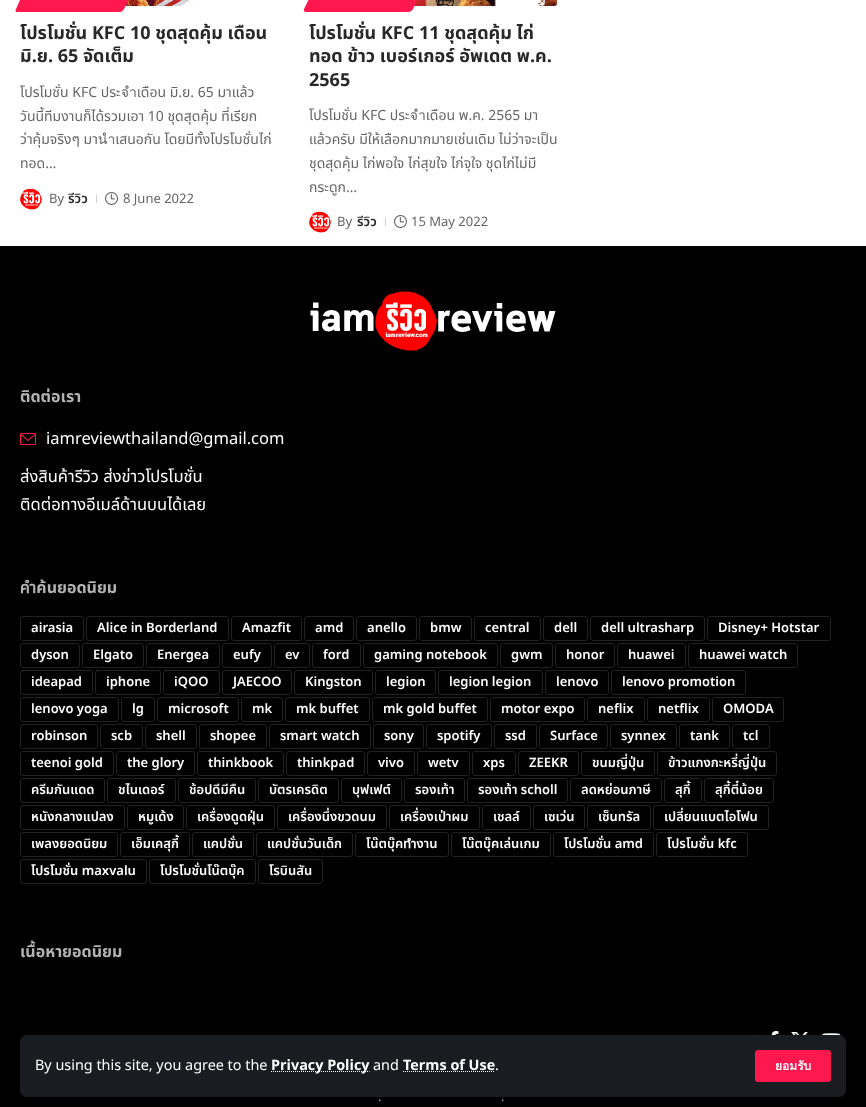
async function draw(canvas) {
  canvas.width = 866
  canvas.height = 1107
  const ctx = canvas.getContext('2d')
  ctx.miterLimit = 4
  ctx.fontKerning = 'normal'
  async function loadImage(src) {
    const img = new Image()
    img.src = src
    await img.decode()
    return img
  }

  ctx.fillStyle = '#fff'
  ctx.fillRect(0, 0, 866, 1107)
  ctx.drawImage(await loadImage('image0.png'), 125, 0, 69, 6)
  ctx.fillStyle = '#ff184e'
  ctx.beginPath()
  ctx.moveTo(29, -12)
  ctx.lineTo(131, -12)
  ctx.bezierCurveTo(133, -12, 133, -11, 133, -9)
  ctx.lineTo(124, 9)
  ctx.bezierCurveTo(123, 11, 121, 12, 120, 12)
  ctx.lineTo(17, 12)
  ctx.bezierCurveTo(16, 12, 15, 11, 16, 9)
  ctx.lineTo(24, -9)
  ctx.bezierCurveTo(25, -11, 27, -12, 29, -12)
  ctx.closePath()
  ctx.fill()
  ctx.font = 'bold 18px Noto Sans Thai'
  ctx.fillStyle = '#282828'
  ctx.fillText('โปรโมชั่น KFC 10 ชุดสุดคุ้ม เดือน', 20, 39)
  ctx.fillText('มิ.ย. 65 จัดเต็ม', 20, 62)
  ctx.font = '14px Noto Sans Thai'
  ctx.fillStyle = '#666'
  ctx.fillText('โปรโมชั่น KFC ประจำเดือน มิ.ย. 65 มาแล้ว', 20, 97)
  ctx.fillText('วันนี้ทีมงานก็ได้รวมเอา 10 ชุดสุดคุ้ม ที่เรียก', 20, 121)
  ctx.fillText('ว่าคุ้มจริงๆ มานำเสนอกัน โดยมีทั้งโปรโมชั่นไก่', 20, 144)
  ctx.fillText('ทอด…', 20, 168)
  ctx.drawImage(await loadImage('image1.png'), 20, 188, 22, 22)
  ctx.font = '13px Noto Sans Thai'
  ctx.fillText('By', 49, 203)
  ctx.font = '600 13px Noto Sans Thai'
  ctx.fillStyle = '#282828'
  ctx.fillText('รีวิว', 68, 203)
  ctx.fillStyle = '#d1d1d1'
  ctx.fillRect(96, 195, 1, 8)
  ctx.drawImage(await loadImage('image2.png'), 105, 192, 13, 13)
  ctx.font = '13px Noto Sans Thai'
  ctx.fillStyle = '#666'
  ctx.fillText('8 June 2022', 123, 203)
  ctx.drawImage(await loadImage('image3.png'), 414, 0, 143, 6)
  ctx.fillStyle = '#ff184e'
  ctx.beginPath()
  ctx.moveTo(317, -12)
  ctx.lineTo(420, -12)
  ctx.bezierCurveTo(421, -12, 422, -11, 421, -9)
  ctx.lineTo(413, 9)
  ctx.bezierCurveTo(412, 11, 410, 12, 408, 12)
  ctx.lineTo(306, 12)
  ctx.bezierCurveTo(304, 12, 304, 11, 304, 9)
  ctx.lineTo(313, -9)
  ctx.bezierCurveTo(314, -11, 316, -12, 317, -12)
  ctx.closePath()
  ctx.fill()
  ctx.font = 'bold 18px Noto Sans Thai'
  ctx.fillStyle = '#282828'
  ctx.fillText('โปรโมชั่น KFC 11 ชุดสุดคุ้ม ไก่', 309, 39)
  ctx.fillText('ทอด ข้าว เบอร์เกอร์ อัพเดต พ.ค.', 309, 62)
  ctx.fillText('2565', 309, 86)
  ctx.font = '14px Noto Sans Thai'
  ctx.fillStyle = '#666'
  ctx.fillText('โปรโมชั่น KFC ประจำเดือน พ.ค. 2565 มา', 309, 120)
  ctx.fillText('แล้วครับ มีให้เลือกมากมายเช่นเดิม ไม่ว่าจะเป็น', 309, 144)
  ctx.fillText('ชุดสุดคุ้ม ไก่พอใจ ไก่สุขใจ ไก่จุใจ ชุดไก่ไม่มี', 309, 168)
  ctx.fillText('กระดูก…', 309, 192)
  ctx.drawImage(await loadImage('image1.png'), 309, 211, 22, 22)
  ctx.font = '13px Noto Sans Thai'
  ctx.fillText('By', 337, 226)
  ctx.font = '600 13px Noto Sans Thai'
  ctx.fillStyle = '#282828'
  ctx.fillText('รีวิว', 357, 226)
  ctx.fillStyle = '#d1d1d1'
  ctx.fillRect(385, 218, 1, 8)
  ctx.drawImage(await loadImage('image2.png'), 394, 215, 13, 13)
  ctx.font = '13px Noto Sans Thai'
  ctx.fillStyle = '#666'
  ctx.fillText('15 May 2022', 411, 226)
  ctx.fillStyle = '#000'
  ctx.fillRect(0, 246, 866, 861)
  ctx.beginPath()
  ctx.moveTo(8, 254)
  ctx.lineTo(8, 670.2)
  ctx.strokeStyle = '#080808'
  ctx.lineWidth = 1.5
  ctx.lineCap = 'round'
  ctx.setLineDash([0, 16])
  ctx.stroke()
  ctx.beginPath()
  ctx.moveTo(24, 254)
  ctx.lineTo(24, 670.2)
  ctx.stroke()
  ctx.beginPath()
  ctx.moveTo(40, 254)
  ctx.lineTo(40, 670.2)
  ctx.stroke()
  ctx.beginPath()
  ctx.moveTo(56, 254)
  ctx.lineTo(56, 670.2)
  ctx.stroke()
  ctx.beginPath()
  ctx.moveTo(72, 254)
  ctx.lineTo(72, 670.2)
  ctx.stroke()
  ctx.beginPath()
  ctx.moveTo(88, 254)
  ctx.lineTo(88, 670.2)
  ctx.stroke()
  ctx.beginPath()
  ctx.moveTo(104, 254)
  ctx.lineTo(104, 670.2)
  ctx.stroke()
  ctx.beginPath()
  ctx.moveTo(120, 254)
  ctx.lineTo(120, 670.2)
  ctx.stroke()
  ctx.beginPath()
  ctx.moveTo(136, 254)
  ctx.lineTo(136, 670.2)
  ctx.stroke()
  ctx.beginPath()
  ctx.moveTo(152, 254)
  ctx.lineTo(152, 670.2)
  ctx.stroke()
  ctx.beginPath()
  ctx.moveTo(168, 254)
  ctx.lineTo(168, 670.2)
  ctx.stroke()
  ctx.drawImage(await loadImage('image4.png'), 310, 291, 246, 60)
  ctx.font = 'bold 16px Noto Sans Thai'
  ctx.fillStyle = '#b3b3b3'
  ctx.fillText('ติดต่อเรา', 20, 402)
  ctx.drawImage(await loadImage('image5.png'), 20, 433, 16, 12)
  ctx.font = '16.5px Noto Sans Thai'
  ctx.fillStyle = '#fff'
  ctx.fillText('iamreviewthailand@gmail.com', 46, 444)
  ctx.fillText('ส่งสินค้ารีวิว ส่งข่าวโปรโมชั่น', 20, 482)
  ctx.fillText('ติดต่อทางอีเมล์ด้านบนได้เลย', 20, 510)
  ctx.font = 'bold 16px Noto Sans Thai'
  ctx.fillStyle = '#b3b3b3'
  ctx.fillText('คำค้นยอดนิยม', 20, 593)
  ctx.beginPath()
  ctx.roundRect(20.5, 616.5, 63, 24, 2.5)
  ctx.strokeStyle = '#222'
  ctx.lineWidth = 1
  ctx.setLineDash([])
  ctx.stroke()
  ctx.font = '600 13px Noto Sans Thai'
  ctx.fillStyle = '#fff'
  ctx.fillText('airasia', 31, 632)
  ctx.beginPath()
  ctx.roundRect(86.5, 616.5, 142, 24, 2.5)
  ctx.stroke()
  ctx.fillText('Alice in Borderland', 97, 632)
  ctx.beginPath()
  ctx.roundRect(231.5, 616.5, 70, 24, 2.5)
  ctx.stroke()
  ctx.fillText('Amazfit', 242, 632)
  ctx.beginPath()
  ctx.roundRect(304.5, 616.5, 49, 24, 2.5)
  ctx.stroke()
  ctx.fillText('amd', 315, 632)
  ctx.beginPath()
  ctx.roundRect(356.5, 616.5, 60, 24, 2.5)
  ctx.stroke()
  ctx.fillText('anello', 367, 632)
  ctx.beginPath()
  ctx.roundRect(419.5, 616.5, 52, 24, 2.5)
  ctx.stroke()
  ctx.fillText('bmw', 430, 632)
  ctx.beginPath()
  ctx.roundRect(474.5, 616.5, 66, 24, 2.5)
  ctx.stroke()
  ctx.fillText('central', 485, 632)
  ctx.beginPath()
  ctx.roundRect(543.5, 616.5, 44, 24, 2.5)
  ctx.stroke()
  ctx.fillText('dell', 554, 632)
  ctx.beginPath()
  ctx.roundRect(590.5, 616.5, 114, 24, 2.5)
  ctx.stroke()
  ctx.fillText('dell ultrasharp', 601, 632)
  ctx.beginPath()
  ctx.roundRect(707.5, 616.5, 123, 24, 2.5)
  ctx.stroke()
  ctx.fillText('Disney+ Hotstar', 718, 632)
  ctx.beginPath()
  ctx.roundRect(20.5, 643.5, 59, 24, 2.5)
  ctx.stroke()
  ctx.fillText('dyson', 31, 659)
  ctx.beginPath()
  ctx.roundRect(82.5, 643.5, 61, 24, 2.5)
  ctx.stroke()
  ctx.fillText('Elgato', 93, 659)
  ctx.beginPath()
  ctx.roundRect(146.5, 643.5, 73, 24, 2.5)
  ctx.stroke()
  ctx.fillText('Energea', 157, 659)
  ctx.beginPath()
  ctx.roundRect(222.5, 643.5, 49, 24, 2.5)
  ctx.stroke()
  ctx.fillText('eufy', 233, 659)
  ctx.beginPath()
  ctx.roundRect(274.5, 643.5, 35, 24, 2.5)
  ctx.stroke()
  ctx.fillText('ev', 285, 659)
  ctx.beginPath()
  ctx.roundRect(312.5, 643.5, 48, 24, 2.5)
  ctx.stroke()
  ctx.fillText('ford', 323, 659)
  ctx.beginPath()
  ctx.roundRect(363.5, 643.5, 134, 24, 2.5)
  ctx.stroke()
  ctx.fillText('gaming notebook', 374, 659)
  ctx.beginPath()
  ctx.roundRect(500.5, 643.5, 52, 24, 2.5)
  ctx.stroke()
  ctx.fillText('gwm', 511, 659)
  ctx.beginPath()
  ctx.roundRect(555.5, 643.5, 59, 24, 2.5)
  ctx.stroke()
  ctx.fillText('honor', 566, 659)
  ctx.beginPath()
  ctx.roundRect(617.5, 643.5, 68, 24, 2.5)
  ctx.stroke()
  ctx.fillText('huawei', 628, 659)
  ctx.beginPath()
  ctx.roundRect(688.5, 643.5, 109, 24, 2.5)
  ctx.stroke()
  ctx.fillText('huawei watch', 699, 659)
  ctx.beginPath()
  ctx.roundRect(20.5, 670.5, 72, 24, 2.5)
  ctx.strokeStyle = '#88888840'
  ctx.stroke()
  ctx.fillText('ideapad', 31, 686)
  ctx.beginPath()
  ctx.roundRect(95.5, 670.5, 65, 24, 2.5)
  ctx.stroke()
  ctx.fillText('iphone', 106, 686)
  ctx.beginPath()
  ctx.roundRect(163.5, 670.5, 56, 24, 2.5)
  ctx.stroke()
  ctx.fillText('iQOO', 174, 686)
  ctx.beginPath()
  ctx.roundRect(222.5, 670.5, 69, 24, 2.5)
  ctx.strokeStyle = '#222'
  ctx.stroke()
  ctx.fillText('JAECOO', 233, 686)
  ctx.beginPath()
  ctx.roundRect(294.5, 670.5, 78, 24, 2.5)
  ctx.stroke()
  ctx.fillText('Kingston', 305, 686)
  ctx.beginPath()
  ctx.roundRect(375.5, 670.5, 60, 24, 2.5)
  ctx.stroke()
  ctx.fillText('legion', 386, 686)
  ctx.beginPath()
  ctx.roundRect(438.5, 670.5, 104, 24, 2.5)
  ctx.stroke()
  ctx.fillText('legion legion', 449, 686)
  ctx.beginPath()
  ctx.roundRect(545.5, 670.5, 63, 24, 2.5)
  ctx.stroke()
  ctx.fillText('lenovo', 556, 686)
  ctx.beginPath()
  ctx.roundRect(611.5, 670.5, 134, 24, 2.5)
  ctx.stroke()
  ctx.fillText('lenovo promotion', 622, 686)
  ctx.beginPath()
  ctx.roundRect(20.5, 697.5, 98, 24, 2.5)
  ctx.stroke()
  ctx.fillText('lenovo yoga', 31, 713)
  ctx.beginPath()
  ctx.roundRect(121.5, 697.5, 33, 24, 2.5)
  ctx.stroke()
  ctx.fillText('lg', 132, 713)
  ctx.beginPath()
  ctx.roundRect(157.5, 697.5, 81, 24, 2.5)
  ctx.stroke()
  ctx.fillText('microsoft', 168, 713)
  ctx.beginPath()
  ctx.roundRect(241.5, 697.5, 41, 24, 2.5)
  ctx.stroke()
  ctx.fillText('mk', 252, 713)
  ctx.beginPath()
  ctx.roundRect(285.5, 697.5, 84, 24, 2.5)
  ctx.stroke()
  ctx.fillText('mk buffet', 296, 713)
  ctx.beginPath()
  ctx.roundRect(372.5, 697.5, 115, 24, 2.5)
  ctx.stroke()
  ctx.fillText('mk gold buffet', 383, 713)
  ctx.beginPath()
  ctx.roundRect(490.5, 697.5, 94, 24, 2.5)
  ctx.stroke()
  ctx.fillText('motor expo', 501, 713)
  ctx.beginPath()
  ctx.roundRect(587.5, 697.5, 57, 24, 2.5)
  ctx.stroke()
  ctx.fillText('neflix', 598, 713)
  ctx.beginPath()
  ctx.roundRect(647.5, 697.5, 62, 24, 2.5)
  ctx.stroke()
  ctx.fillText('netflix', 658, 713)
  ctx.beginPath()
  ctx.roundRect(712.5, 697.5, 71, 24, 2.5)
  ctx.stroke()
  ctx.fillText('OMODA', 723, 713)
  ctx.beginPath()
  ctx.roundRect(20.5, 724.5, 77, 24, 2.5)
  ctx.stroke()
  ctx.fillText('robinson', 31, 740)
  ctx.beginPath()
  ctx.roundRect(100.5, 724.5, 42, 24, 2.5)
  ctx.stroke()
  ctx.fillText('scb', 111, 740)
  ctx.beginPath()
  ctx.roundRect(145.5, 724.5, 51, 24, 2.5)
  ctx.stroke()
  ctx.fillText('shell', 156, 740)
  ctx.beginPath()
  ctx.roundRect(199.5, 724.5, 67, 24, 2.5)
  ctx.stroke()
  ctx.fillText('shopee', 210, 740)
  ctx.beginPath()
  ctx.roundRect(269.5, 724.5, 101, 24, 2.5)
  ctx.stroke()
  ctx.fillText('smart watch', 280, 740)
  ctx.beginPath()
  ctx.roundRect(373.5, 724.5, 50, 24, 2.5)
  ctx.stroke()
  ctx.fillText('sony', 384, 740)
  ctx.beginPath()
  ctx.roundRect(426.5, 724.5, 65, 24, 2.5)
  ctx.stroke()
  ctx.fillText('spotify', 437, 740)
  ctx.beginPath()
  ctx.roundRect(494.5, 724.5, 42, 24, 2.5)
  ctx.stroke()
  ctx.fillText('ssd', 505, 740)
  ctx.beginPath()
  ctx.roundRect(539.5, 724.5, 68, 24, 2.5)
  ctx.stroke()
  ctx.fillText('Surface', 550, 740)
  ctx.beginPath()
  ctx.roundRect(610.5, 724.5, 66, 24, 2.5)
  ctx.stroke()
  ctx.fillText('synnex', 621, 740)
  ctx.beginPath()
  ctx.roundRect(679.5, 724.5, 50, 24, 2.5)
  ctx.stroke()
  ctx.fillText('tank', 690, 740)
  ctx.beginPath()
  ctx.roundRect(732.5, 724.5, 37, 24, 2.5)
  ctx.stroke()
  ctx.fillText('tcl', 743, 740)
  ctx.beginPath()
  ctx.roundRect(20.5, 751.5, 93, 24, 2.5)
  ctx.stroke()
  ctx.fillText('teenoi gold', 31, 767)
  ctx.beginPath()
  ctx.roundRect(116.5, 751.5, 78, 24, 2.5)
  ctx.stroke()
  ctx.fillText('the glory', 127, 767)
  ctx.beginPath()
  ctx.roundRect(197.5, 751.5, 86, 24, 2.5)
  ctx.stroke()
  ctx.fillText('thinkbook', 208, 767)
  ctx.beginPath()
  ctx.roundRect(286.5, 751.5, 78, 24, 2.5)
  ctx.stroke()
  ctx.fillText('thinkpad', 297, 767)
  ctx.beginPath()
  ctx.roundRect(367.5, 751.5, 47, 24, 2.5)
  ctx.stroke()
  ctx.fillText('vivo', 378, 767)
  ctx.beginPath()
  ctx.roundRect(417.5, 751.5, 52, 24, 2.5)
  ctx.stroke()
  ctx.fillText('wetv', 428, 767)
  ctx.beginPath()
  ctx.roundRect(472.5, 751.5, 43, 24, 2.5)
  ctx.stroke()
  ctx.fillText('xps', 483, 767)
  ctx.beginPath()
  ctx.roundRect(518.5, 751.5, 60, 24, 2.5)
  ctx.stroke()
  ctx.fillText('ZEEKR', 529, 767)
  ctx.beginPath()
  ctx.roundRect(581.5, 751.5, 73, 24, 2.5)
  ctx.stroke()
  ctx.fillText('ขนมญี่ปุ่น', 592, 767)
  ctx.beginPath()
  ctx.roundRect(657.5, 751.5, 119, 24, 2.5)
  ctx.stroke()
  ctx.fillText('ข้าวแกงกะหรี่ญี่ปุ่น', 668, 767)
  ctx.beginPath()
  ctx.roundRect(20.5, 778.5, 84, 24, 2.5)
  ctx.stroke()
  ctx.fillText('ครีมกันแดด', 31, 794)
  ctx.beginPath()
  ctx.roundRect(107.5, 778.5, 68, 24, 2.5)
  ctx.stroke()
  ctx.fillText('ชไนเดอร์', 118, 794)
  ctx.beginPath()
  ctx.roundRect(178.5, 778.5, 77, 24, 2.5)
  ctx.stroke()
  ctx.fillText('ช้อปดีมีคืน', 189, 794)
  ctx.beginPath()
  ctx.roundRect(258.5, 778.5, 80, 24, 2.5)
  ctx.stroke()
  ctx.fillText('บัตรเครดิต', 269, 794)
  ctx.beginPath()
  ctx.roundRect(341.5, 778.5, 60, 24, 2.5)
  ctx.stroke()
  ctx.fillText('บุฟเฟต์', 352, 794)
  ctx.beginPath()
  ctx.roundRect(404.5, 778.5, 60, 24, 2.5)
  ctx.stroke()
  ctx.fillText('รองเท้า', 415, 794)
  ctx.beginPath()
  ctx.roundRect(467.5, 778.5, 100, 24, 2.5)
  ctx.stroke()
  ctx.fillText('รองเท้า scholl', 478, 794)
  ctx.beginPath()
  ctx.roundRect(570.5, 778.5, 91, 24, 2.5)
  ctx.stroke()
  ctx.fillText('ลดหย่อนภาษี', 581, 794)
  ctx.beginPath()
  ctx.roundRect(664.5, 778.5, 37, 24, 2.5)
  ctx.stroke()
  ctx.fillText('สุกี้', 675, 794)
  ctx.beginPath()
  ctx.roundRect(704.5, 778.5, 69, 24, 2.5)
  ctx.stroke()
  ctx.fillText('สุกี้ตี๋น้อย', 715, 794)
  ctx.beginPath()
  ctx.roundRect(20.5, 805.5, 104, 24, 2.5)
  ctx.stroke()
  ctx.fillText('หนังกลางแปลง', 31, 821)
  ctx.beginPath()
  ctx.roundRect(127.5, 805.5, 56, 24, 2.5)
  ctx.stroke()
  ctx.fillText('หมูเด้ง', 138, 821)
  ctx.beginPath()
  ctx.roundRect(186.5, 805.5, 88, 24, 2.5)
  ctx.stroke()
  ctx.fillText('เครื่องดูดฝุ่น', 197, 821)
  ctx.beginPath()
  ctx.roundRect(277.5, 805.5, 109, 24, 2.5)
  ctx.stroke()
  ctx.fillText('เครื่องนึ่งขวดนม', 288, 821)
  ctx.beginPath()
  ctx.roundRect(389.5, 805.5, 90, 24, 2.5)
  ctx.stroke()
  ctx.fillText('เครื่องเป่าผม', 400, 821)
  ctx.beginPath()
  ctx.roundRect(482.5, 805.5, 48, 24, 2.5)
  ctx.stroke()
  ctx.fillText('เชลล์', 493, 821)
  ctx.beginPath()
  ctx.roundRect(533.5, 805.5, 51, 24, 2.5)
  ctx.stroke()
  ctx.fillText('เซเว่น', 544, 821)
  ctx.beginPath()
  ctx.roundRect(587.5, 805.5, 63, 24, 2.5)
  ctx.stroke()
  ctx.fillText('เซ็นทรัล', 598, 821)
  ctx.beginPath()
  ctx.roundRect(653.5, 805.5, 115, 24, 2.5)
  ctx.stroke()
  ctx.fillText('เปลี่ยนแบตไอโฟน', 664, 821)
  ctx.beginPath()
  ctx.roundRect(20.5, 832.5, 97, 24, 2.5)
  ctx.stroke()
  ctx.fillText('เพลงยอดนิยม', 31, 848)
  ctx.beginPath()
  ctx.roundRect(120.5, 832.5, 69, 24, 2.5)
  ctx.stroke()
  ctx.fillText('เอ็มเคสุกี้', 131, 848)
  ctx.beginPath()
  ctx.roundRect(192.5, 832.5, 61, 24, 2.5)
  ctx.stroke()
  ctx.fillText('แคปชั่น', 203, 848)
  ctx.beginPath()
  ctx.roundRect(256.5, 832.5, 96, 24, 2.5)
  ctx.stroke()
  ctx.fillText('แคปชั่นวันเด็ก', 267, 848)
  ctx.beginPath()
  ctx.roundRect(355.5, 832.5, 93, 24, 2.5)
  ctx.stroke()
  ctx.fillText('โน๊ตบุ๊คทำงาน', 366, 848)
  ctx.beginPath()
  ctx.roundRect(451.5, 832.5, 99, 24, 2.5)
  ctx.stroke()
  ctx.fillText('โน๊ตบุ๊คเล่นเกม', 462, 848)
  ctx.beginPath()
  ctx.roundRect(553.5, 832.5, 100, 24, 2.5)
  ctx.stroke()
  ctx.fillText('โปรโมชั่น amd', 564, 848)
  ctx.beginPath()
  ctx.roundRect(656.5, 832.5, 91, 24, 2.5)
  ctx.stroke()
  ctx.fillText('โปรโมชั่น kfc', 667, 848)
  ctx.beginPath()
  ctx.roundRect(20.5, 859.5, 126, 24, 2.5)
  ctx.stroke()
  ctx.fillText('โปรโมชั่น maxvalu', 31, 875)
  ctx.beginPath()
  ctx.roundRect(149.5, 859.5, 106, 24, 2.5)
  ctx.stroke()
  ctx.fillText('โปรโมชั่นโน๊ตบุ๊ค', 160, 875)
  ctx.beginPath()
  ctx.roundRect(258.5, 859.5, 64, 24, 2.5)
  ctx.stroke()
  ctx.fillText('โรบินสัน', 269, 875)
  ctx.font = 'bold 16px Noto Sans Thai'
  ctx.fillStyle = '#b3b3b3'
  ctx.fillText('เนื้อหายอดนิยม', 20, 957)
  ctx.fillStyle = '#222'
  ctx.fillRect(757, 1034, 1, 1)
  ctx.drawImage(await loadImage('image6.png'), 771, 1031, 8, 4)
  ctx.drawImage(await loadImage('image7.png'), 791, 1032, 17, 3)
  ctx.drawImage(await loadImage('image8.png'), 822, 1033, 19, 3)
  ctx.font = '13px Noto Sans Thai'
  ctx.fillStyle = '#b3b3b3'
  ctx.fillText('.', 378, 1101)
  ctx.fillText('.', 501, 1101)
  ctx.fillStyle = '#0000001f'
  ctx.filter = 'blur(15px)'
  ctx.beginPath()
  ctx.roundRect(20, 1039, 826, 62, 7)
  ctx.fill()
  ctx.filter = 'none'
  ctx.fillStyle = '#191c20'
  ctx.beginPath()
  ctx.roundRect(20, 1035, 826, 62, 7)
  ctx.fill()
  ctx.font = '14.4px Noto Sans Thai'
  ctx.fillStyle = '#fff'
  ctx.fillText('By using this site, you agree to the', 35, 1070)
  ctx.beginPath()
  ctx.moveTo(271, 1071.5)
  ctx.lineTo(369.5, 1071.5)
  ctx.strokeStyle = '#fff'
  ctx.lineCap = 'butt'
  ctx.setLineDash([1, 1])
  ctx.stroke()
  ctx.font = 'bold 14.4px Noto Sans Thai'
  ctx.fillText('Privacy Policy', 271, 1070)
  ctx.font = '14.4px Noto Sans Thai'
  ctx.fillText('and', 373, 1070)
  ctx.font = 'bold 14.4px Noto Sans Thai'
  ctx.fillText('Terms of Use', 403, 1070)
  ctx.beginPath()
  ctx.moveTo(403, 1071.5)
  ctx.lineTo(495, 1071.5)
  ctx.stroke()
  ctx.font = '14.4px Noto Sans Thai'
  ctx.fillText('.', 495, 1070)
  ctx.fillStyle = '#ff184e'
  ctx.beginPath()
  ctx.roundRect(755, 1050, 76, 32, 3)
  ctx.fill()
  ctx.font = 'bold 12px Loma'
  ctx.fillStyle = '#fff'
  ctx.fillText('ยอมรับ', 775, 1070)
}

draw(document.querySelector('canvas'))
